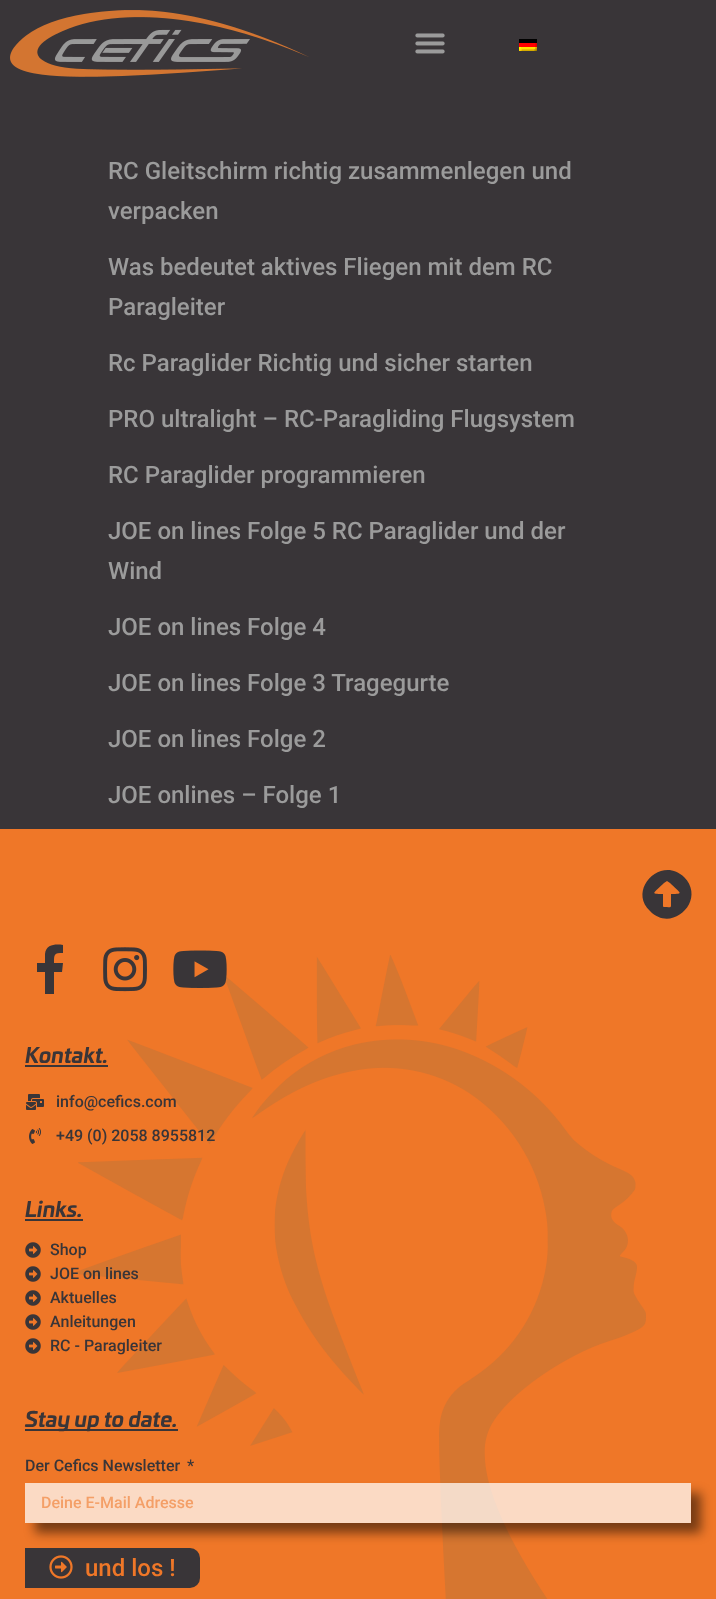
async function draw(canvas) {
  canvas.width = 716
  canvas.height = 1599
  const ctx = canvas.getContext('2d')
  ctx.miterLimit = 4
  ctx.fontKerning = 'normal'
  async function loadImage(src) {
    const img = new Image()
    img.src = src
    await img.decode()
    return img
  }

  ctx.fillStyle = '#393538'
  ctx.fillRect(0, 0, 716, 1599)
  ctx.drawImage(await loadImage('image0.png'), 10, 10, 299, 67)
  ctx.drawImage(await loadImage('image1.png'), 415, 33, 30, 21)
  ctx.drawImage(await loadImage('image2.png'), 519, 39, 18, 12)
  ctx.font = '500 24px Roboto'
  ctx.fillStyle = '#9b9b9b'
  ctx.fillText('RC Gleitschirm richtig zusammenlegen und', 108, 179)
  ctx.fillText('verpacken', 108, 219)
  ctx.fillText('Was bedeutet aktives Fliegen mit dem RC', 108, 275)
  ctx.fillText('Paragleiter', 108, 315)
  ctx.fillText('Rc Paraglider Richtig und sicher starten', 108, 371)
  ctx.fillText('PRO ultralight – RC-Paragliding Flugsystem', 108, 427)
  ctx.fillText('RC Paraglider programmieren', 108, 483)
  ctx.fillText('JOE on lines Folge 5 RC Paraglider und der', 108, 539)
  ctx.fillText('Wind', 108, 579)
  ctx.fillText('JOE on lines Folge 4', 108, 635)
  ctx.fillText('JOE on lines Folge 3 Tragegurte', 108, 691)
  ctx.fillText('JOE on lines Folge 2', 108, 747)
  ctx.fillText('JOE onlines – Folge 1', 108, 803)
  ctx.fillStyle = '#ef7728'
  ctx.fillRect(0, 829, 716, 770)
  ctx.fillStyle = '#393538'
  ctx.beginPath()
  ctx.moveTo(650, 911)
  ctx.bezierCurveTo(627, 889, 662, 855, 684, 877)
  ctx.bezierCurveTo(707, 900, 672, 934, 650, 911)
  ctx.closePath()
  ctx.moveTo(671, 906)
  ctx.lineTo(671, 894)
  ctx.bezierCurveTo(685, 894, 680, 893, 670, 883)
  ctx.lineTo(667, 881)
  ctx.lineTo(664, 883)
  ctx.bezierCurveTo(654, 893, 649, 894, 663, 894)
  ctx.lineTo(663, 904)
  ctx.bezierCurveTo(663, 908, 663, 907, 667, 907)
  ctx.bezierCurveTo(668, 907, 671, 908, 671, 906)
  ctx.closePath()
  ctx.fill()
  ctx.drawImage(await loadImage('image3.png'), 71, 955, 575, 644)
  ctx.beginPath()
  ctx.moveTo(62, 972)
  ctx.lineTo(54, 972)
  ctx.lineTo(54, 994)
  ctx.lineTo(45, 994)
  ctx.lineTo(45, 972)
  ctx.lineTo(37, 972)
  ctx.lineTo(37, 963)
  ctx.lineTo(45, 963)
  ctx.lineTo(45, 954)
  ctx.bezierCurveTo(46, 944, 56, 944, 63, 945)
  ctx.lineTo(63, 953)
  ctx.bezierCurveTo(54, 953, 54, 954, 54, 963)
  ctx.lineTo(63, 963)
  ctx.closePath()
  ctx.fill()
  ctx.drawImage(await loadImage('image4.png'), 103, 947, 44, 45)
  ctx.drawImage(await loadImage('image5.png'), 173, 950, 54, 38)
  ctx.font = 'italic bold 20.75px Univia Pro'
  ctx.fillText('Kontakt.', 25, 1063)
  ctx.fillRect(25, 1065, 83, 2)
  ctx.drawImage(await loadImage('image6.png'), 26, 1094, 18, 16)
  ctx.font = '500 16px Roboto'
  ctx.fillText('info@cefics.com', 56, 1107)
  ctx.drawImage(await loadImage('image7.png'), 29, 1128, 12, 16)
  ctx.fillText('+49 (0) 2058 8955812', 56, 1141)
  ctx.font = 'italic bold 20.75px Univia Pro'
  ctx.fillText('Links.', 25, 1217)
  ctx.fillRect(25, 1219, 58, 2)
  ctx.drawImage(await loadImage('image8.png'), 25, 1242, 16, 16)
  ctx.font = '500 16px Roboto'
  ctx.fillText('Shop', 50, 1255)
  ctx.drawImage(await loadImage('image8.png'), 25, 1266, 16, 16)
  ctx.fillText('JOE on lines', 50, 1279)
  ctx.drawImage(await loadImage('image8.png'), 25, 1290, 16, 16)
  ctx.fillText('Aktuelles', 50, 1303)
  ctx.drawImage(await loadImage('image8.png'), 25, 1314, 16, 16)
  ctx.fillText('Anleitungen', 50, 1327)
  ctx.drawImage(await loadImage('image8.png'), 25, 1338, 16, 16)
  ctx.fillText('RC - Paragleiter', 50, 1351)
  ctx.fillRect(25, 1429, 153, 2)
  ctx.font = 'italic bold 20.75px Univia Pro'
  ctx.fillText('Stay up to date.', 25, 1427)
  ctx.font = '500 16px Roboto'
  ctx.fillText('Der Cefics Newsletter', 25, 1471)
  ctx.fillText('*', 187, 1471)
  ctx.save()
  ctx.beginPath()
  ctx.moveTo(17, 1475)
  ctx.lineTo(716, 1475)
  ctx.lineTo(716, 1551)
  ctx.lineTo(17, 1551)
  ctx.closePath()
  ctx.moveTo(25, 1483)
  ctx.lineTo(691, 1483)
  ctx.lineTo(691, 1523)
  ctx.lineTo(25, 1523)
  ctx.closePath()
  ctx.clip('evenodd')
  ctx.fillStyle = '#00000080'
  ctx.filter = 'blur(5.5px)'
  ctx.beginPath()
  ctx.rect(35, 1493, 666, 40)
  ctx.fill()
  ctx.filter = 'none'
  ctx.restore()
  ctx.fillStyle = '#ffffffba'
  ctx.fillRect(25, 1483, 666, 40)
  ctx.fillStyle = '#f49f67'
  ctx.fillText('Deine E-Mail Adresse', 41, 1508)
  ctx.fillStyle = '#393538'
  ctx.beginPath()
  ctx.roundRect(25, 1548, 175, 40, [0, 10, 10, 0])
  ctx.fill()
  ctx.drawImage(await loadImage('image9.png'), 49, 1555, 24, 24)
  ctx.font = '500 24px Roboto'
  ctx.fillStyle = '#ef7728'
  ctx.fillText('und los !', 85, 1576)
}

draw(document.querySelector('canvas'))
